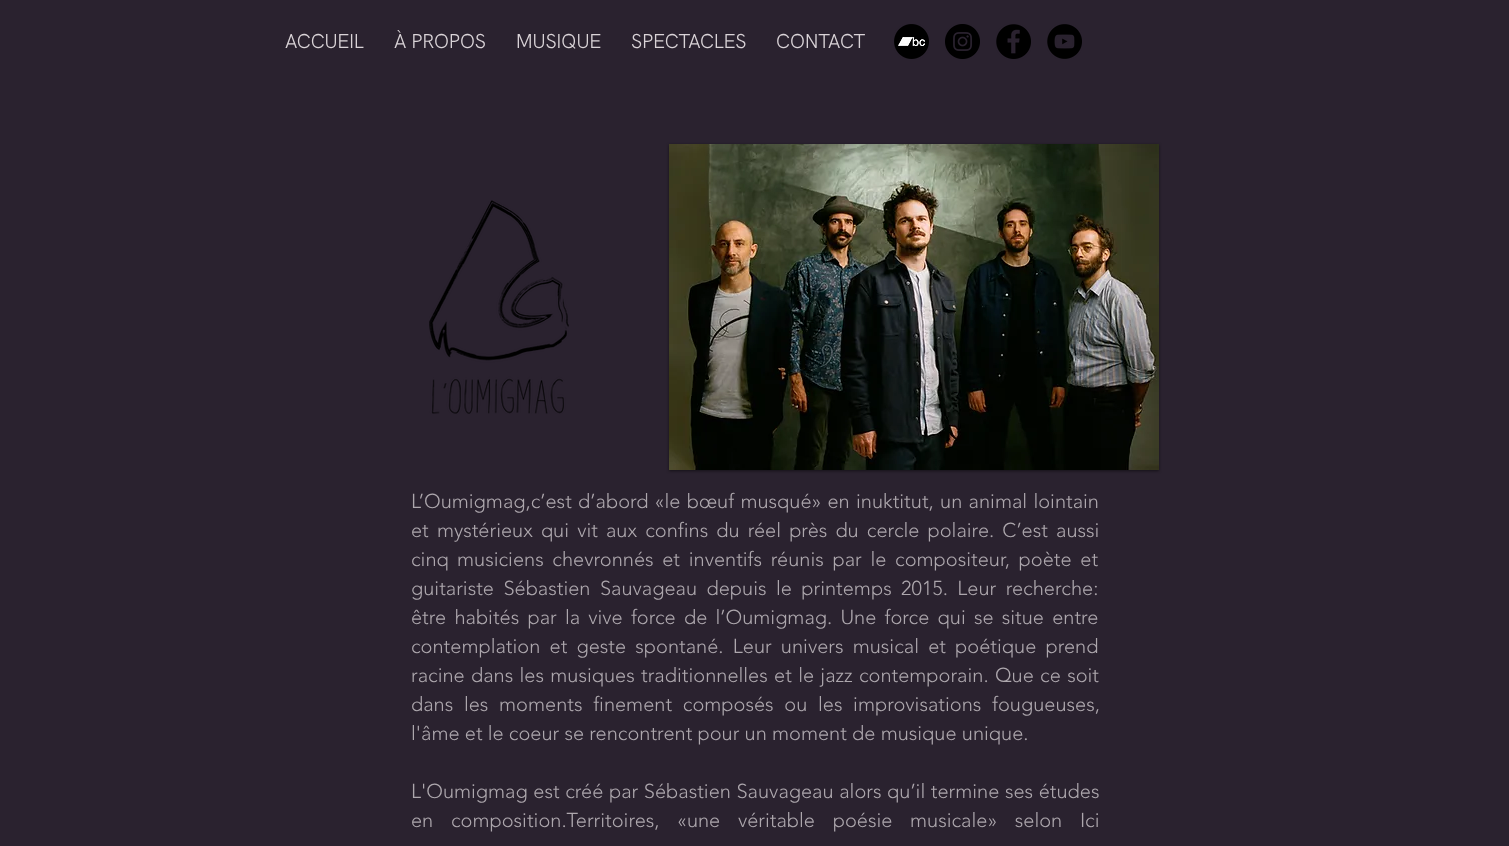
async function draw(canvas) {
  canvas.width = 1509
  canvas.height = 846
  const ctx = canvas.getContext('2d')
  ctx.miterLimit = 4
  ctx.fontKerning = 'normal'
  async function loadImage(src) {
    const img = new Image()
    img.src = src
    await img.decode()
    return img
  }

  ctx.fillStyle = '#2a222f'
  ctx.fillRect(0, 0, 1509, 846)
  ctx.font = '300 20px Hanken Grotesk'
  ctx.fillStyle = '#d9d3d7'
  ctx.fillText('ACCUEIL', 285, 48)
  ctx.fillText('À PROPOS', 394, 48)
  ctx.fillText('MUSIQUE', 516, 48)
  ctx.fillText('SPECTACLES', 631, 48)
  ctx.fillText('CONTACT', 776, 48)
  ctx.drawImage(await loadImage('image0.png'), 894, 24, 35, 35)
  ctx.drawImage(await loadImage('image1.png'), 945, 24, 35, 35)
  ctx.drawImage(await loadImage('image2.png'), 996, 24, 35, 35)
  ctx.drawImage(await loadImage('image3.png'), 1047, 24, 35, 35)
  ctx.drawImage(await loadImage('image4.png'), 429, 200, 140, 214)
  ctx.fillStyle = '#00000080'
  ctx.filter = 'blur(1.5px)'
  ctx.beginPath()
  ctx.rect(669, 145, 490, 326)
  ctx.fill()
  ctx.filter = 'none'
  ctx.drawImage(await loadImage('image5.png'), 669, 144, 490, 326)
  ctx.wordSpacing = '1.1px'
  ctx.font = '300 20px "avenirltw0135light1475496"'
  ctx.fillStyle = '#ada7ad'
  ctx.fillText('L’Oumigmag,c’est d’abord «le bœuf musqué» en inuktitut, un animal lointain', 411, 508)
  ctx.wordSpacing = '2.9px'
  ctx.fillText('et mystérieux qui vit aux confins du réel près du cercle polaire. C’est aussi', 411, 537)
  ctx.wordSpacing = '0px'
  ctx.fillText('cinq', 411, 566)
  ctx.wordSpacing = '3.5px'
  ctx.fillText('musiciens chevronnés et inventifs réunis par le compositeur, poète et', 457, 566)
  ctx.wordSpacing = '4.25px'
  ctx.fillText('guitariste Sébastien Sauvageau depuis le printemps 2015. Leur recherche:', 411, 595)
  ctx.wordSpacing = '3px'
  ctx.fillText('être habités par la vive force de l’Oumigmag. Une force qui se situe entre', 411, 624)
  ctx.wordSpacing = '4px'
  ctx.fillText('contemplation et geste spontané. Leur univers musical et poétique prend', 411, 653)
  ctx.wordSpacing = '1.1px'
  ctx.fillText('racine dans les musiques traditionnelles et le jazz contemporain. Que ce soit', 411, 682)
  ctx.wordSpacing = '5.5px'
  ctx.fillText('dans les moments finement composés ou les improvisations fougueuses,', 411, 711)
  ctx.wordSpacing = '0px'
  ctx.fillText('l\'âme et le coeur se rencontrent pour un moment de musique unique.', 411, 740)
  ctx.fillText('L', 411, 798)
  ctx.wordSpacing = '0.4px'
  ctx.fillText('\'Oumigmag est créé par Sébastien Sauvageau alors qu’il termine ses études', 421, 798)
  ctx.wordSpacing = '12.5px'
  ctx.fillText('en composition.Territoires, «une véritable poésie musicale» selon Ici', 411, 827)
}

draw(document.querySelector('canvas'))
